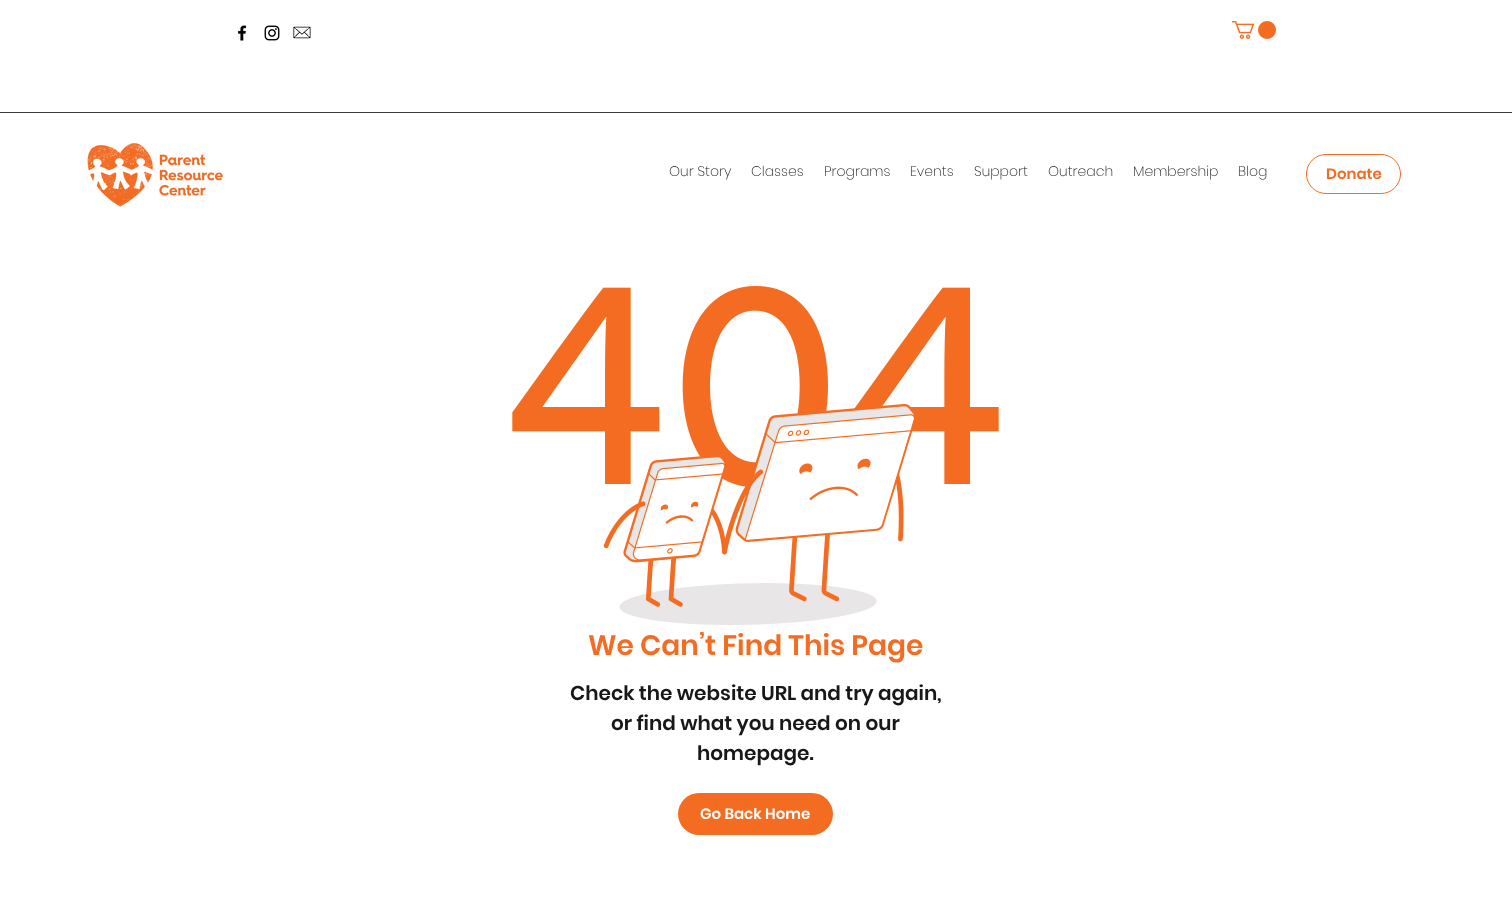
async function draw(canvas) {
  canvas.width = 1512
  canvas.height = 898
  const ctx = canvas.getContext('2d')
  ctx.miterLimit = 4
  ctx.fontKerning = 'normal'
  async function loadImage(src) {
    const img = new Image()
    img.src = src
    await img.decode()
    return img
  }

  ctx.fillStyle = '#fff'
  ctx.fillRect(0, 0, 1512, 898)
  ctx.drawImage(await loadImage('image0.png'), 238, 25, 9, 16)
  ctx.drawImage(await loadImage('image1.png'), 264, 25, 16, 16)
  ctx.drawImage(await loadImage('image2.png'), 292, 23, 20, 16)
  ctx.drawImage(await loadImage('image3.png'), 1232, 21, 44, 18)
  ctx.fillStyle = '#3b3b3b'
  ctx.fillRect(0, 112, 1512, 1)
  ctx.drawImage(await loadImage('image4.png'), 87, 142, 136, 65)
  ctx.font = '200 14px Poppins'
  ctx.fillStyle = '#181818'
  ctx.fillText('Our Story', 669, 176)
  ctx.fillText('Classes', 751, 176)
  ctx.fillText('Programs', 824, 176)
  ctx.fillText('Events', 910, 176)
  ctx.fillText('Support', 974, 176)
  ctx.fillText('Outreach', 1048, 176)
  ctx.fillText('Membership', 1133, 176)
  ctx.fillText('Blog', 1238, 176)
  ctx.beginPath()
  ctx.roundRect(1306.5, 154.5, 94, 39, 19.5)
  ctx.strokeStyle = '#f36c21'
  ctx.stroke()
  ctx.font = '600 15px Poppins'
  ctx.fillStyle = '#f36c21'
  ctx.fillText('Donate', 1326, 179)
  ctx.drawImage(await loadImage('image5.png'), 512, 286, 487, 339)
  ctx.font = '600 28px Poppins'
  ctx.fillText('We Can’t Find This Page', 588, 655)
  ctx.font = '600 20px Poppins'
  ctx.fillStyle = '#181818'
  ctx.fillText('Check the website URL and try again,', 570, 700)
  ctx.fillText('or find what you need on our', 611, 730)
  ctx.fillText('homepage.', 697, 760)
  ctx.fillStyle = '#f36c21'
  ctx.beginPath()
  ctx.roundRect(678, 793, 155, 42, 21)
  ctx.fill()
  ctx.font = '600 15px Poppins'
  ctx.fillStyle = '#fff'
  ctx.fillText('Go Back Home', 700, 819)
}

draw(document.querySelector('canvas'))
